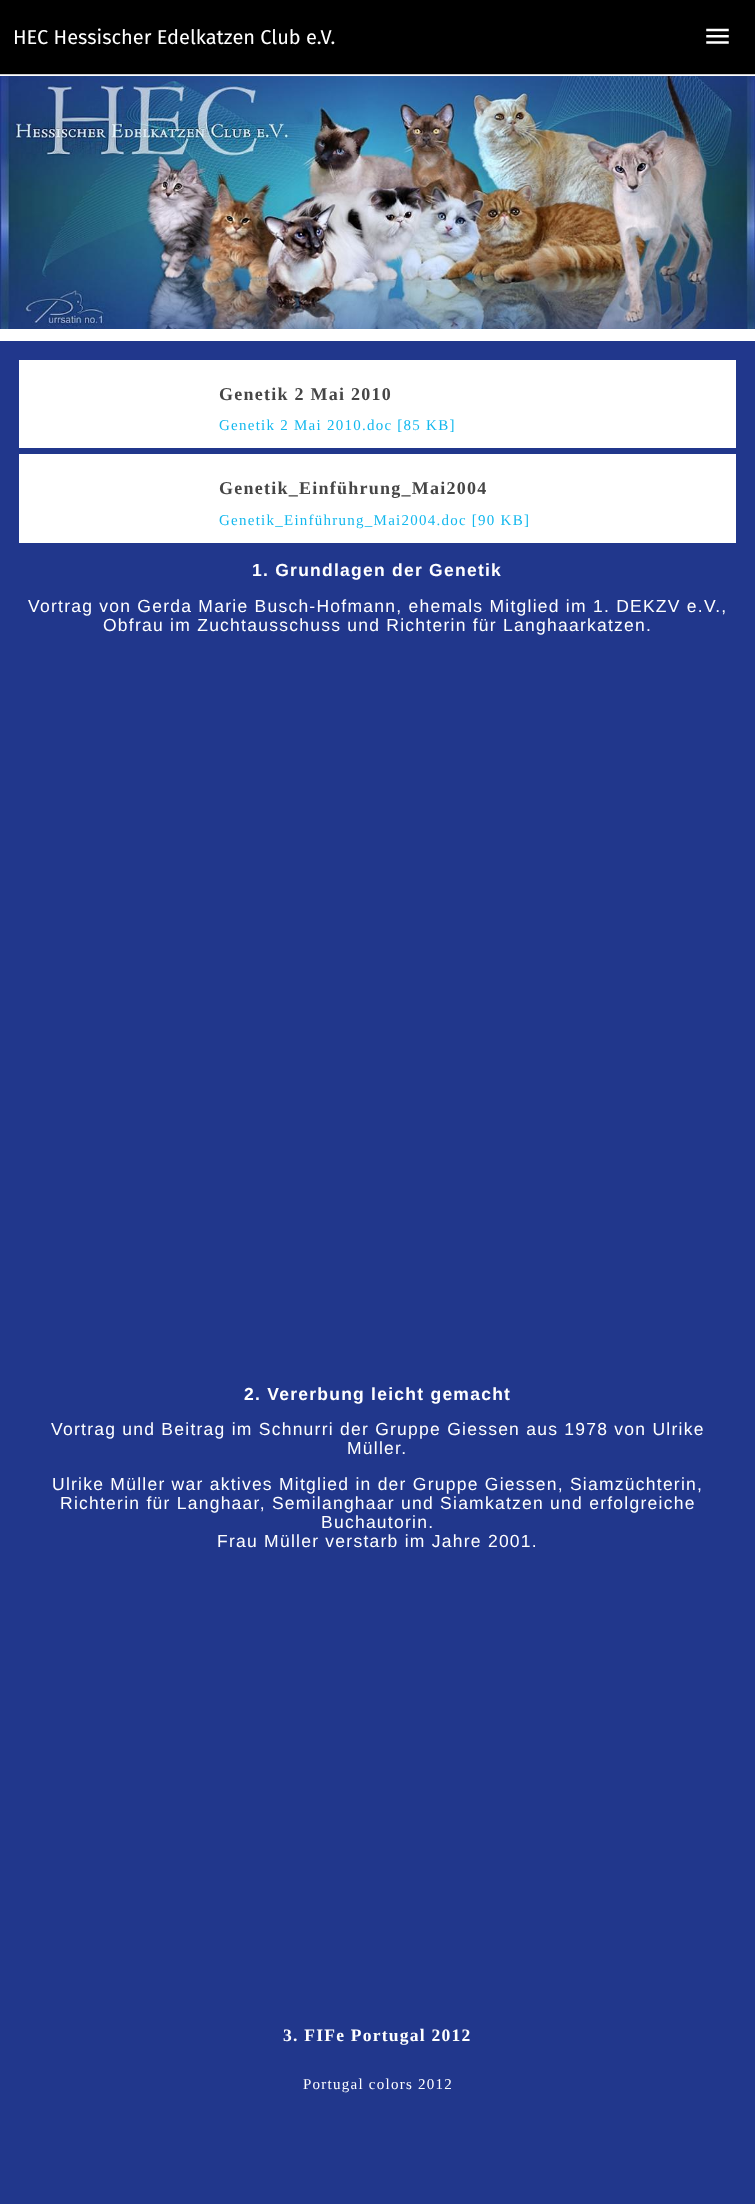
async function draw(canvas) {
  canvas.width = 755
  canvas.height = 2204
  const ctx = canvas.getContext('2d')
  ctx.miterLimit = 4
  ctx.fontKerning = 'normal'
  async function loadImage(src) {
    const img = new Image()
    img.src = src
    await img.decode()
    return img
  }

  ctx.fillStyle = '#21378c'
  ctx.fillRect(0, 0, 755, 2204)
  ctx.fillStyle = '#000'
  ctx.fillRect(0, 0, 755, 74)
  ctx.fillStyle = '#ccc'
  ctx.fillRect(0, 74, 755, 1)
  ctx.fillStyle = '#fff'
  ctx.fillRect(0, 75, 755, 1)
  ctx.font = '20px Fira Sans'
  ctx.fillText('HEC Hessischer Edelkatzen Club e.V.', 13, 44)
  ctx.drawImage(await loadImage('image0.png'), 706, 28, 23, 16)
  ctx.drawImage(await loadImage('image1.png'), 0, 76, 755, 253)
  ctx.fillRect(0, 329, 755, 12)
  ctx.fillRect(19, 360, 717, 88)
  ctx.letterSpacing = '1.25px'
  ctx.font = 'bold 18px Liberation Serif'
  ctx.fillStyle = '#464646'
  ctx.fillText('Genetik 2 Mai 2010', 219, 400)
  ctx.font = '15px Liberation Serif'
  ctx.fillStyle = '#13b8ee'
  ctx.fillText('Genetik 2 Mai 2010.doc [85 KB]', 219, 430)
  ctx.fillStyle = '#fff'
  ctx.fillRect(19, 454, 717, 89)
  ctx.font = 'bold 18px Liberation Serif'
  ctx.fillStyle = '#464646'
  ctx.fillText('Genetik_Einführung_Mai2004', 219, 494)
  ctx.font = '15px Liberation Serif'
  ctx.fillStyle = '#13b8ee'
  ctx.fillText('Genetik_Einführung_Mai2004.doc [90 KB]', 219, 525)
  ctx.font = 'bold 17.5px Liberation Sans'
  ctx.fillStyle = '#fff'
  ctx.fillText('1. Grundlagen der Genetik', 252, 576)
  ctx.font = '17.5px Liberation Sans'
  ctx.fillText('Vortrag von Gerda Marie Busch-Hofmann, ehemals Mitglied im 1. DEKZV e.V.,', 28, 612)
  ctx.fillText('Obfrau im Zuchtausschuss und Richterin für Langhaarkatzen.', 103, 631)
  ctx.font = 'bold 17.5px Liberation Sans'
  ctx.fillText('2. Vererbung leicht gemacht', 244, 1400)
  ctx.font = '17.5px Liberation Sans'
  ctx.fillText('Vortrag und Beitrag im Schnurri der Gruppe Giessen aus 1978 von Ulrike', 51, 1435)
  ctx.fillText('Müller.', 347, 1454)
  ctx.fillText('Ulrike Müller war aktives Mitglied in der Gruppe Giessen, Siamzüchterin,', 52, 1490)
  ctx.fillText('Richterin für Langhaar, Semilanghaar und Siamkatzen und erfolgreiche', 60, 1509)
  ctx.fillText('Buchautorin.', 321, 1528)
  ctx.fillText('Frau Müller verstarb im Jahre 2001.', 217, 1547)
  ctx.font = 'bold 17.5px Liberation Serif'
  ctx.fillText('3. FIFe Portugal 2012', 283, 2041)
  ctx.font = '15px Liberation Serif'
  ctx.fillText('Portugal colors 2012', 303, 2089)
}

draw(document.querySelector('canvas'))
